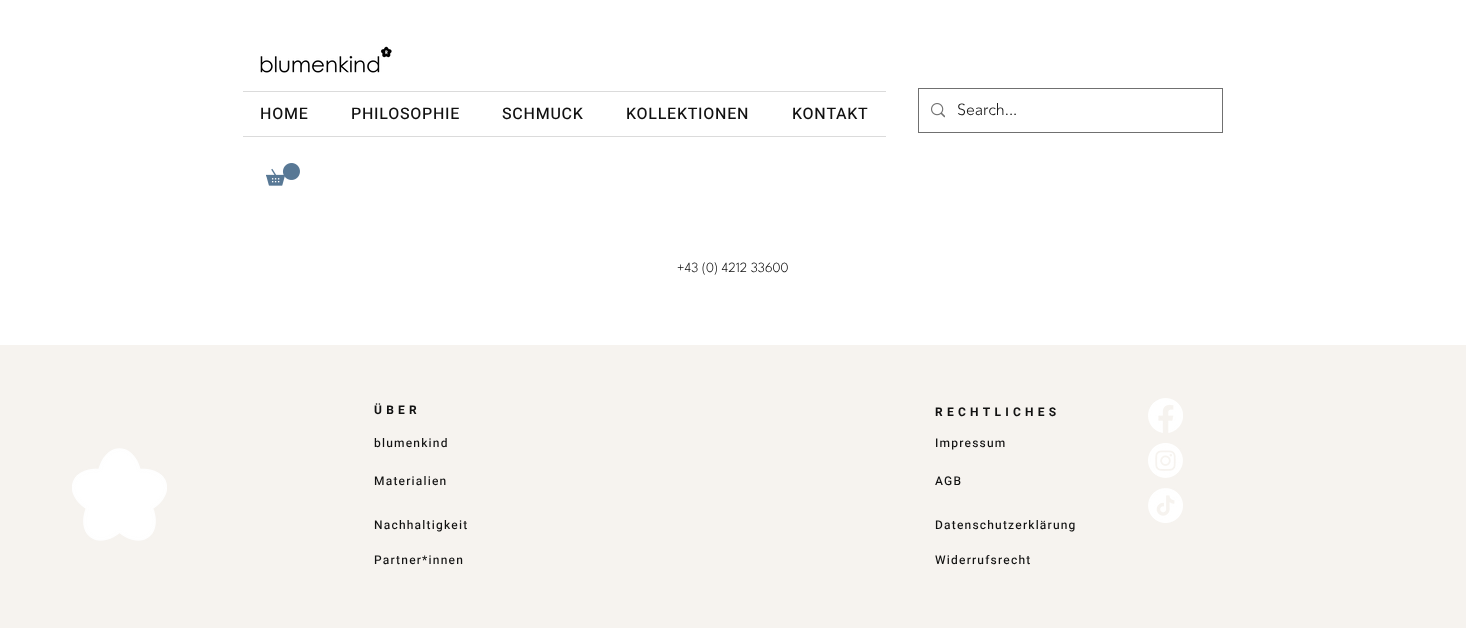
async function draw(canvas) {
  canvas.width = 1466
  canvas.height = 628
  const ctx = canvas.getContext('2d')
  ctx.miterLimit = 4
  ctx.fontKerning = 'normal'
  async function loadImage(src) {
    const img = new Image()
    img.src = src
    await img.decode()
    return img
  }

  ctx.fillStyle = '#fff'
  ctx.fillRect(0, 0, 1466, 628)
  ctx.drawImage(await loadImage('image0.png'), 260, 46, 132, 27)
  ctx.fillStyle = '#dbdbdb'
  ctx.fillRect(243, 91, 643, 1)
  ctx.fillRect(243, 136, 643, 1)
  ctx.letterSpacing = '0.75px'
  ctx.font = '500 16px Heebo'
  ctx.fillStyle = '#111'
  ctx.fillText('HOME', 260, 119)
  ctx.fillText('PHILOSOPHIE', 351, 119)
  ctx.fillText('SCHMUCK', 502, 119)
  ctx.fillText('KOLLEKTIONEN', 626, 119)
  ctx.fillText('KONTAKT', 792, 119)
  ctx.strokeStyle = '#707070'
  ctx.strokeRect(918.5, 88.5, 304, 44)
  ctx.drawImage(await loadImage('image1.png'), 931, 103, 14, 15)
  ctx.letterSpacing = '0px'
  ctx.font = '300 16px "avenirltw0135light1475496"'
  ctx.fillText('Search...', 957, 115)
  ctx.drawImage(await loadImage('image2.png'), 266, 163, 34, 23)
  ctx.font = '100 14px League Spartan'
  ctx.fillText('+43 (0) 4212 33600', 677, 272)
  ctx.fillStyle = '#f6f3ef'
  ctx.fillRect(0, 345, 1466, 283)
  ctx.letterSpacing = '4.25px'
  ctx.font = 'bold 12px Heebo'
  ctx.fillStyle = '#111'
  ctx.fillText('ÜBER', 374, 414)
  ctx.fillText('RECHTLICHES', 935, 416)
  ctx.drawImage(await loadImage('image3.png'), 1148, 398, 35, 35)
  ctx.drawImage(await loadImage('image4.png'), 1148, 443, 35, 35)
  ctx.drawImage(await loadImage('image5.png'), 1148, 488, 35, 35)
  ctx.letterSpacing = '1.2px'
  ctx.font = '500 12px Heebo'
  ctx.fillText('blumenkind', 374, 447)
  ctx.fillText('Impressum', 935, 447)
  ctx.drawImage(await loadImage('image6.png'), 72, 448, 95, 93)
  ctx.fillText('Materialien', 374, 485)
  ctx.fillText('AGB', 935, 485)
  ctx.fillText('Nachhaltigkeit', 374, 529)
  ctx.fillText('Datenschutzerklärung', 935, 529)
  ctx.fillText('Partner*innen', 374, 564)
  ctx.fillText('Widerrufsrecht', 935, 564)
}

draw(document.querySelector('canvas'))
